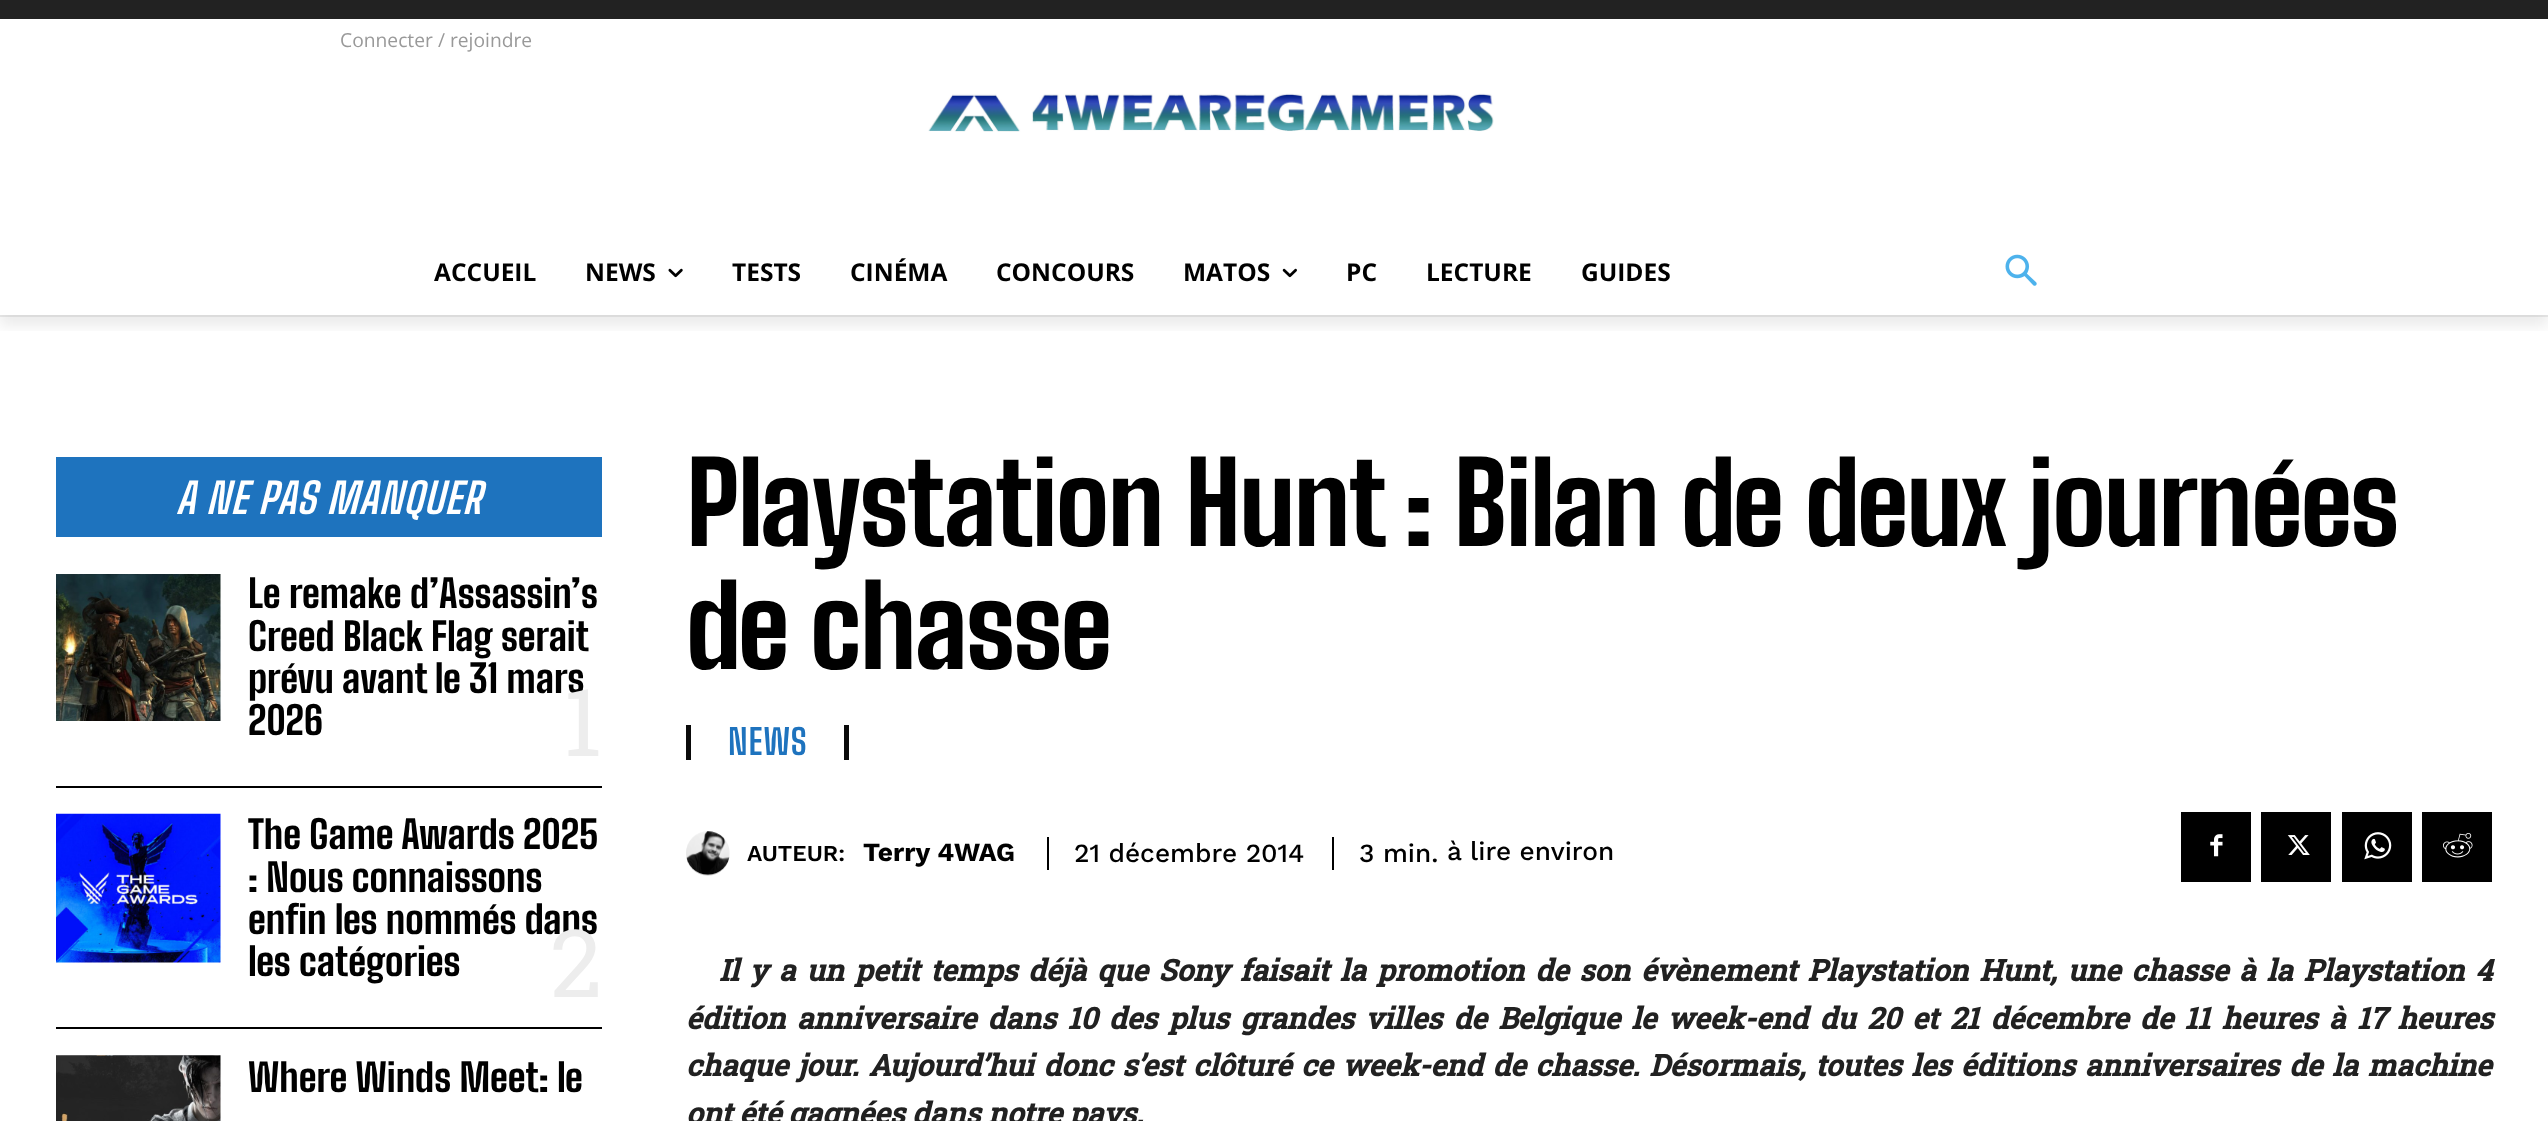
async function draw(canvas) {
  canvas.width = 2548
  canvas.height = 1121
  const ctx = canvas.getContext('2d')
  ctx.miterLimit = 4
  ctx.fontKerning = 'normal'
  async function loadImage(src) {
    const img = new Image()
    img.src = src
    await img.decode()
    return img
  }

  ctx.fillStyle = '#fff'
  ctx.fillRect(0, 0, 2548, 1121)
  ctx.fillStyle = '#222'
  ctx.fillRect(0, 0, 2548, 19)
  ctx.drawImage(await loadImage('image0.png'), 928, 93, 566, 39)
  ctx.fillStyle = '#ededed'
  ctx.fillRect(0, 315, 2548, 2)
  ctx.save()
  ctx.beginPath()
  ctx.rect(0, 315, 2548, 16)
  ctx.clip()
  ctx.fillStyle = '#00000014'
  ctx.filter = 'blur(7px)'
  ctx.beginPath()
  ctx.rect(0, 11, 2548, 315)
  ctx.fill()
  ctx.filter = 'none'
  ctx.restore()
  ctx.font = '19.25px Open Sans'
  ctx.fillStyle = '#999'
  ctx.fillText('Connecter / rejoindre', 340, 47)
  ctx.font = 'bold 24.5px Open Sans'
  ctx.fillStyle = '#000'
  ctx.fillText('ACCUEIL', 434, 281)
  ctx.fillText('NEWS', 585, 281)
  ctx.drawImage(await loadImage('image1.png'), 668, 268, 15, 10)
  ctx.fillText('TESTS', 732, 281)
  ctx.fillText('CINÉMA', 850, 281)
  ctx.fillText('CONCOURS', 996, 281)
  ctx.fillText('MATOS', 1183, 281)
  ctx.drawImage(await loadImage('image2.png'), 1282, 268, 15, 10)
  ctx.fillText('PC', 1346, 281)
  ctx.fillText('LECTURE', 1426, 281)
  ctx.fillText('GUIDES', 1581, 281)
  ctx.drawImage(await loadImage('image3.png'), 2005, 254, 32, 32)
  ctx.fillStyle = '#1e73be'
  ctx.fillRect(56, 457, 546, 80)
  ctx.letterSpacing = '0.9px'
  ctx.font = 'italic bold 42px Big Shoulders Text'
  ctx.fillStyle = '#fff'
  ctx.fillText('A NE PAS MANQUER', 176, 514)
  ctx.fillStyle = '#000'
  ctx.fillRect(56, 786, 546, 2)
  ctx.drawImage(await loadImage('image4.png'), 56, 574, 165, 147)
  ctx.letterSpacing = '0px'
  ctx.font = '800 38.5px Big Shoulders Text'
  ctx.fillText('Le remake d’Assassin’s', 248, 608)
  ctx.fillText('Creed Black Flag serait', 248, 651)
  ctx.fillText('prévu avant le 31 mars', 248, 693)
  ctx.fillText('2026', 248, 735)
  ctx.font = '94px Roboto Slab'
  ctx.fillStyle = '#ededed'
  ctx.fillText('1', 563, 756)
  ctx.fillStyle = '#000'
  ctx.fillRect(56, 1027, 546, 2)
  ctx.drawImage(await loadImage('image5.png'), 56, 813, 165, 150)
  ctx.font = '800 38.5px Big Shoulders Text'
  ctx.fillText('The Game Awards 2025', 248, 849)
  ctx.fillText(': Nous connaissons', 248, 892)
  ctx.fillText('enfin les nommés dans', 248, 934)
  ctx.fillText('les catégories', 248, 976)
  ctx.font = '94px Roboto Slab'
  ctx.fillStyle = '#ededed'
  ctx.fillText('2', 550, 997)
  ctx.drawImage(await loadImage('image6.png'), 56, 1055, 165, 66)
  ctx.font = '800 38.5px Big Shoulders Text'
  ctx.fillStyle = '#000'
  ctx.fillText('Where Winds Meet: le', 248, 1092)
  ctx.letterSpacing = '-1.75px'
  ctx.font = '800 112px Big Shoulders Text'
  ctx.fillText('Playstation Hunt : Bilan de deux journées', 686, 546)
  ctx.fillText('de chasse', 686, 669)
  ctx.fillStyle = '#0a0a0a'
  ctx.fillRect(844, 725, 5, 35)
  ctx.fillRect(686, 725, 5, 35)
  ctx.letterSpacing = '0.9px'
  ctx.font = 'bold 35px Big Shoulders Text'
  ctx.fillStyle = '#1e73be'
  ctx.fillText('NEWS', 728, 755)
  ctx.drawImage(await loadImage('image7.png'), 686, 831, 44, 45)
  ctx.letterSpacing = '0px'
  ctx.font = '600 22.75px Work Sans'
  ctx.fillStyle = '#000'
  ctx.fillText('AUTEUR:', 747, 861)
  ctx.font = 'bold 26.25px Work Sans'
  ctx.fillText('Terry 4WAG', 863, 861)
  ctx.fillRect(1332, 837, 2, 33)
  ctx.fillRect(1047, 837, 2, 33)
  ctx.font = '500 26.25px Work Sans'
  ctx.fillText('21 décembre 2014', 1074, 862)
  ctx.fillText('3 min.', 1359, 862)
  ctx.fillText('à lire environ', 1447, 860)
  ctx.fillRect(2181, 812, 70, 70)
  ctx.drawImage(await loadImage('image8.png'), 2210, 834, 13, 23)
  ctx.fillRect(2261, 812, 70, 70)
  ctx.drawImage(await loadImage('image9.png'), 2287, 835, 23, 20)
  ctx.fillRect(2342, 812, 70, 70)
  ctx.drawImage(await loadImage('image10.png'), 2364, 832, 28, 28)
  ctx.fillRect(2422, 812, 70, 70)
  ctx.drawImage(await loadImage('image11.png'), 2443, 833, 30, 25)
  ctx.wordSpacing = '3.6px'
  ctx.font = 'italic bold 29.75px Roboto Slab'
  ctx.fillStyle = '#212121'
  ctx.fillText('Il y a un petit temps déjà que Sony faisait la promotion de son évènement Playstation Hunt, une chasse à la Playstation 4', 719, 981)
  ctx.wordSpacing = '4.2px'
  ctx.fillText('édition anniversaire dans 10 des plus grandes villes de Belgique le week-end du 20 et 21 décembre de 11 heures à 17 heures', 686, 1029)
  ctx.wordSpacing = '2.5px'
  ctx.fillText('chaque jour. Aujourd’hui donc s’est clôturé ce week-end de chasse. Désormais, toutes les éditions anniversaires de la machine', 686, 1076)
  ctx.wordSpacing = '0px'
  ctx.fillText('ont été gagnées dans notre pays.', 686, 1124)
}

draw(document.querySelector('canvas'))
